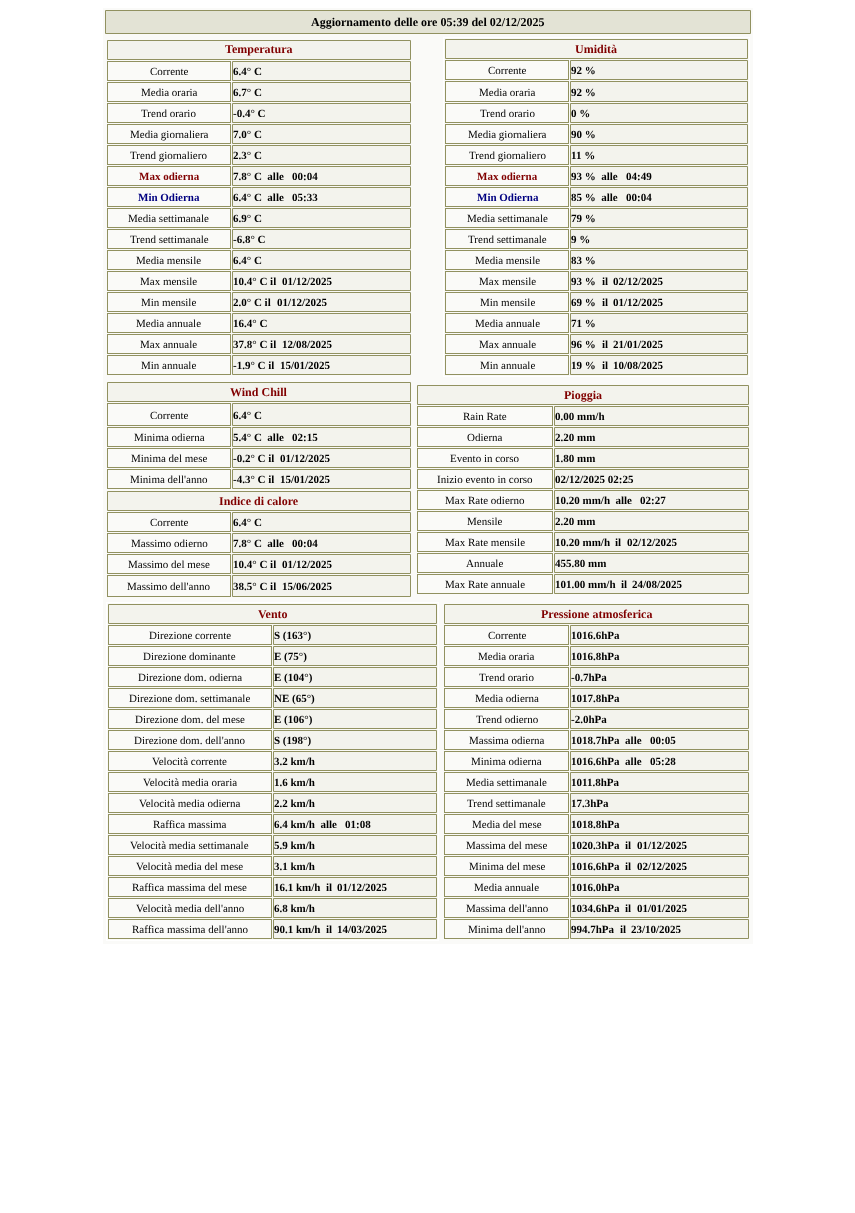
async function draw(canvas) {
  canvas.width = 855
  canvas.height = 1213
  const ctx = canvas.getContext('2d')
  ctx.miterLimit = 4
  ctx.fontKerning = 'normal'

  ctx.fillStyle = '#fff'
  ctx.fillRect(0, 0, 855, 1213)
  ctx.fillStyle = '#fafaf8'
  ctx.fillRect(103, 8, 650, 936)
  ctx.fillStyle = '#e3e3d5'
  ctx.beginPath()
  ctx.rect(105.5, 10.5, 645, 23)
  ctx.fill()
  ctx.strokeStyle = '#919160'
  ctx.stroke()
  ctx.font = 'bold 12px Liberation Serif'
  ctx.fillStyle = '#000'
  ctx.fillText('Aggiornamento delle ore 05:39 del 02/12/2025', 311, 26)
  ctx.fillStyle = '#f3f3ed'
  ctx.beginPath()
  ctx.rect(107.5, 40.5, 303, 19)
  ctx.fill()
  ctx.stroke()
  ctx.fillStyle = '#800000'
  ctx.fillText('Temperatura', 225, 53)
  ctx.strokeRect(107.5, 61.5, 123, 19)
  ctx.font = '11px Liberation Serif'
  ctx.fillStyle = '#000'
  ctx.fillText('Corrente', 150, 75)
  ctx.fillStyle = '#f3f3ed'
  ctx.beginPath()
  ctx.rect(232.5, 61.5, 178, 19)
  ctx.fill()
  ctx.stroke()
  ctx.font = 'bold 11px Liberation Serif'
  ctx.fillStyle = '#000'
  ctx.fillText('6.4° C', 233, 75)
  ctx.strokeRect(107.5, 82.5, 123, 19)
  ctx.font = '11px Liberation Serif'
  ctx.fillText('Media oraria', 141, 96)
  ctx.fillStyle = '#f3f3ed'
  ctx.beginPath()
  ctx.rect(232.5, 82.5, 178, 19)
  ctx.fill()
  ctx.stroke()
  ctx.font = 'bold 11px Liberation Serif'
  ctx.fillStyle = '#000'
  ctx.fillText('6.7° C', 233, 96)
  ctx.strokeRect(107.5, 103.5, 123, 19)
  ctx.font = '11px Liberation Serif'
  ctx.fillText('Trend orario', 141, 117)
  ctx.fillStyle = '#f3f3ed'
  ctx.beginPath()
  ctx.rect(232.5, 103.5, 178, 19)
  ctx.fill()
  ctx.stroke()
  ctx.font = 'bold 11px Liberation Serif'
  ctx.fillStyle = '#000'
  ctx.fillText('-0.4° C', 233, 117)
  ctx.strokeRect(107.5, 124.5, 123, 19)
  ctx.font = '11px Liberation Serif'
  ctx.fillText('Media giornaliera', 130, 138)
  ctx.fillStyle = '#f3f3ed'
  ctx.beginPath()
  ctx.rect(232.5, 124.5, 178, 19)
  ctx.fill()
  ctx.stroke()
  ctx.font = 'bold 11px Liberation Serif'
  ctx.fillStyle = '#000'
  ctx.fillText('7.0° C', 233, 138)
  ctx.strokeRect(107.5, 145.5, 123, 19)
  ctx.font = '11px Liberation Serif'
  ctx.fillText('Trend giornaliero', 130, 159)
  ctx.fillStyle = '#f3f3ed'
  ctx.beginPath()
  ctx.rect(232.5, 145.5, 178, 19)
  ctx.fill()
  ctx.stroke()
  ctx.font = 'bold 11px Liberation Serif'
  ctx.fillStyle = '#000'
  ctx.fillText('2.3° C', 233, 159)
  ctx.strokeRect(107.5, 166.5, 123, 19)
  ctx.fillStyle = '#800000'
  ctx.fillText('Max odierna', 139, 180)
  ctx.fillStyle = '#f3f3ed'
  ctx.beginPath()
  ctx.rect(232.5, 166.5, 178, 19)
  ctx.fill()
  ctx.stroke()
  ctx.fillStyle = '#000'
  ctx.fillText('7.8° C  alle', 233, 180)
  ctx.fillText('00:04', 292, 180)
  ctx.strokeRect(107.5, 187.5, 123, 19)
  ctx.fillStyle = '#000080'
  ctx.fillText('Min Odierna', 138, 201)
  ctx.fillStyle = '#f3f3ed'
  ctx.beginPath()
  ctx.rect(232.5, 187.5, 178, 19)
  ctx.fill()
  ctx.stroke()
  ctx.fillStyle = '#000'
  ctx.fillText('6.4° C  alle', 233, 201)
  ctx.fillText('05:33', 292, 201)
  ctx.strokeRect(107.5, 208.5, 123, 19)
  ctx.font = '11px Liberation Serif'
  ctx.fillText('Media settimanale', 128, 222)
  ctx.fillStyle = '#f3f3ed'
  ctx.beginPath()
  ctx.rect(232.5, 208.5, 178, 19)
  ctx.fill()
  ctx.stroke()
  ctx.font = 'bold 11px Liberation Serif'
  ctx.fillStyle = '#000'
  ctx.fillText('6.9° C', 233, 222)
  ctx.strokeRect(107.5, 229.5, 123, 19)
  ctx.font = '11px Liberation Serif'
  ctx.fillText('Trend settimanale', 130, 243)
  ctx.fillStyle = '#f3f3ed'
  ctx.beginPath()
  ctx.rect(232.5, 229.5, 178, 19)
  ctx.fill()
  ctx.stroke()
  ctx.font = 'bold 11px Liberation Serif'
  ctx.fillStyle = '#000'
  ctx.fillText('-6.8° C', 233, 243)
  ctx.strokeRect(107.5, 250.5, 123, 19)
  ctx.font = '11px Liberation Serif'
  ctx.fillText('Media mensile', 136, 264)
  ctx.fillStyle = '#f3f3ed'
  ctx.beginPath()
  ctx.rect(232.5, 250.5, 178, 19)
  ctx.fill()
  ctx.stroke()
  ctx.font = 'bold 11px Liberation Serif'
  ctx.fillStyle = '#000'
  ctx.fillText('6.4° C', 233, 264)
  ctx.strokeRect(107.5, 271.5, 123, 19)
  ctx.font = '11px Liberation Serif'
  ctx.fillText('Max mensile', 140, 285)
  ctx.fillStyle = '#f3f3ed'
  ctx.beginPath()
  ctx.rect(232.5, 271.5, 178, 19)
  ctx.fill()
  ctx.stroke()
  ctx.font = 'bold 11px Liberation Serif'
  ctx.fillStyle = '#000'
  ctx.fillText('10.4° C il', 233, 285)
  ctx.fillText('01/12/2025', 282, 285)
  ctx.strokeRect(107.5, 292.5, 123, 19)
  ctx.font = '11px Liberation Serif'
  ctx.fillText('Min mensile', 141, 306)
  ctx.fillStyle = '#f3f3ed'
  ctx.beginPath()
  ctx.rect(232.5, 292.5, 178, 19)
  ctx.fill()
  ctx.stroke()
  ctx.font = 'bold 11px Liberation Serif'
  ctx.fillStyle = '#000'
  ctx.fillText('2.0° C il', 233, 306)
  ctx.fillText('01/12/2025', 277, 306)
  ctx.strokeRect(107.5, 313.5, 123, 19)
  ctx.font = '11px Liberation Serif'
  ctx.fillText('Media annuale', 136, 327)
  ctx.fillStyle = '#f3f3ed'
  ctx.beginPath()
  ctx.rect(232.5, 313.5, 178, 19)
  ctx.fill()
  ctx.stroke()
  ctx.font = 'bold 11px Liberation Serif'
  ctx.fillStyle = '#000'
  ctx.fillText('16.4° C', 233, 327)
  ctx.strokeRect(107.5, 334.5, 123, 19)
  ctx.font = '11px Liberation Serif'
  ctx.fillText('Max annuale', 140, 348)
  ctx.fillStyle = '#f3f3ed'
  ctx.beginPath()
  ctx.rect(232.5, 334.5, 178, 19)
  ctx.fill()
  ctx.stroke()
  ctx.font = 'bold 11px Liberation Serif'
  ctx.fillStyle = '#000'
  ctx.fillText('37.8° C il', 233, 348)
  ctx.fillText('12/08/2025', 282, 348)
  ctx.strokeRect(107.5, 355.5, 123, 19)
  ctx.font = '11px Liberation Serif'
  ctx.fillText('Min annuale', 141, 369)
  ctx.fillStyle = '#f3f3ed'
  ctx.beginPath()
  ctx.rect(232.5, 355.5, 178, 19)
  ctx.fill()
  ctx.stroke()
  ctx.font = 'bold 11px Liberation Serif'
  ctx.fillStyle = '#000'
  ctx.fillText('-1.9° C il', 233, 369)
  ctx.fillText('15/01/2025', 280, 369)
  ctx.strokeStyle = '#fff'
  ctx.strokeRect(443.5, 37.5, 306, 339)
  ctx.fillStyle = '#f3f3ed'
  ctx.beginPath()
  ctx.rect(445.5, 39.5, 302, 19)
  ctx.fill()
  ctx.strokeStyle = '#919160'
  ctx.stroke()
  ctx.font = 'bold 12px Liberation Serif'
  ctx.fillStyle = '#800000'
  ctx.fillText('Umidità', 575, 53)
  ctx.strokeRect(445.5, 60.5, 123, 19)
  ctx.font = '11px Liberation Serif'
  ctx.fillStyle = '#000'
  ctx.fillText('Corrente', 488, 74)
  ctx.fillStyle = '#f3f3ed'
  ctx.beginPath()
  ctx.rect(570.5, 60.5, 177, 19)
  ctx.fill()
  ctx.stroke()
  ctx.font = 'bold 11px Liberation Serif'
  ctx.fillStyle = '#000'
  ctx.fillText('92 %', 571, 74)
  ctx.strokeRect(445.5, 81.5, 123, 20)
  ctx.font = '11px Liberation Serif'
  ctx.fillText('Media oraria', 479, 96)
  ctx.fillStyle = '#f3f3ed'
  ctx.beginPath()
  ctx.rect(570.5, 81.5, 177, 20)
  ctx.fill()
  ctx.stroke()
  ctx.font = 'bold 11px Liberation Serif'
  ctx.fillStyle = '#000'
  ctx.fillText('92 %', 571, 96)
  ctx.strokeRect(445.5, 103.5, 123, 19)
  ctx.font = '11px Liberation Serif'
  ctx.fillText('Trend orario', 480, 117)
  ctx.fillStyle = '#f3f3ed'
  ctx.beginPath()
  ctx.rect(570.5, 103.5, 177, 19)
  ctx.fill()
  ctx.stroke()
  ctx.font = 'bold 11px Liberation Serif'
  ctx.fillStyle = '#000'
  ctx.fillText('0 %', 571, 117)
  ctx.strokeRect(445.5, 124.5, 123, 19)
  ctx.font = '11px Liberation Serif'
  ctx.fillText('Media giornaliera', 468, 138)
  ctx.fillStyle = '#f3f3ed'
  ctx.beginPath()
  ctx.rect(570.5, 124.5, 177, 19)
  ctx.fill()
  ctx.stroke()
  ctx.font = 'bold 11px Liberation Serif'
  ctx.fillStyle = '#000'
  ctx.fillText('90 %', 571, 138)
  ctx.strokeRect(445.5, 145.5, 123, 19)
  ctx.font = '11px Liberation Serif'
  ctx.fillText('Trend giornaliero', 469, 159)
  ctx.fillStyle = '#f3f3ed'
  ctx.beginPath()
  ctx.rect(570.5, 145.5, 177, 19)
  ctx.fill()
  ctx.stroke()
  ctx.font = 'bold 11px Liberation Serif'
  ctx.fillStyle = '#000'
  ctx.fillText('11 %', 571, 159)
  ctx.strokeRect(445.5, 166.5, 123, 19)
  ctx.fillStyle = '#800000'
  ctx.fillText('Max odierna', 477, 180)
  ctx.fillStyle = '#f3f3ed'
  ctx.beginPath()
  ctx.rect(570.5, 166.5, 177, 19)
  ctx.fill()
  ctx.stroke()
  ctx.fillStyle = '#000'
  ctx.fillText('93 %  alle', 571, 180)
  ctx.fillText('04:49', 626, 180)
  ctx.strokeRect(445.5, 187.5, 123, 19)
  ctx.fillStyle = '#000080'
  ctx.fillText('Min Odierna', 477, 201)
  ctx.fillStyle = '#f3f3ed'
  ctx.beginPath()
  ctx.rect(570.5, 187.5, 177, 19)
  ctx.fill()
  ctx.stroke()
  ctx.fillStyle = '#000'
  ctx.fillText('85 %  alle', 571, 201)
  ctx.fillText('00:04', 626, 201)
  ctx.strokeRect(445.5, 208.5, 123, 19)
  ctx.font = '11px Liberation Serif'
  ctx.fillText('Media settimanale', 467, 222)
  ctx.fillStyle = '#f3f3ed'
  ctx.beginPath()
  ctx.rect(570.5, 208.5, 177, 19)
  ctx.fill()
  ctx.stroke()
  ctx.font = 'bold 11px Liberation Serif'
  ctx.fillStyle = '#000'
  ctx.fillText('79 %', 571, 222)
  ctx.strokeRect(445.5, 229.5, 123, 19)
  ctx.font = '11px Liberation Serif'
  ctx.fillText('Trend settimanale', 468, 243)
  ctx.fillStyle = '#f3f3ed'
  ctx.beginPath()
  ctx.rect(570.5, 229.5, 177, 19)
  ctx.fill()
  ctx.stroke()
  ctx.font = 'bold 11px Liberation Serif'
  ctx.fillStyle = '#000'
  ctx.fillText('9 %', 571, 243)
  ctx.strokeRect(445.5, 250.5, 123, 19)
  ctx.font = '11px Liberation Serif'
  ctx.fillText('Media mensile', 475, 264)
  ctx.fillStyle = '#f3f3ed'
  ctx.beginPath()
  ctx.rect(570.5, 250.5, 177, 19)
  ctx.fill()
  ctx.stroke()
  ctx.font = 'bold 11px Liberation Serif'
  ctx.fillStyle = '#000'
  ctx.fillText('83 %', 571, 264)
  ctx.strokeRect(445.5, 271.5, 123, 19)
  ctx.font = '11px Liberation Serif'
  ctx.fillText('Max mensile', 479, 285)
  ctx.fillStyle = '#f3f3ed'
  ctx.beginPath()
  ctx.rect(570.5, 271.5, 177, 19)
  ctx.fill()
  ctx.stroke()
  ctx.font = 'bold 11px Liberation Serif'
  ctx.fillStyle = '#000'
  ctx.fillText('93 %', 571, 285)
  ctx.fillText('il', 602, 285)
  ctx.fillText('02/12/2025', 613, 285)
  ctx.strokeRect(445.5, 292.5, 123, 19)
  ctx.font = '11px Liberation Serif'
  ctx.fillText('Min mensile', 480, 306)
  ctx.fillStyle = '#f3f3ed'
  ctx.beginPath()
  ctx.rect(570.5, 292.5, 177, 19)
  ctx.fill()
  ctx.stroke()
  ctx.font = 'bold 11px Liberation Serif'
  ctx.fillStyle = '#000'
  ctx.fillText('69 %', 571, 306)
  ctx.fillText('il', 602, 306)
  ctx.fillText('01/12/2025', 613, 306)
  ctx.strokeRect(445.5, 313.5, 123, 19)
  ctx.font = '11px Liberation Serif'
  ctx.fillText('Media annuale', 475, 327)
  ctx.fillStyle = '#f3f3ed'
  ctx.beginPath()
  ctx.rect(570.5, 313.5, 177, 19)
  ctx.fill()
  ctx.stroke()
  ctx.font = 'bold 11px Liberation Serif'
  ctx.fillStyle = '#000'
  ctx.fillText('71 %', 571, 327)
  ctx.strokeRect(445.5, 334.5, 123, 19)
  ctx.font = '11px Liberation Serif'
  ctx.fillText('Max annuale', 479, 348)
  ctx.fillStyle = '#f3f3ed'
  ctx.beginPath()
  ctx.rect(570.5, 334.5, 177, 19)
  ctx.fill()
  ctx.stroke()
  ctx.font = 'bold 11px Liberation Serif'
  ctx.fillStyle = '#000'
  ctx.fillText('96 %', 571, 348)
  ctx.fillText('il', 602, 348)
  ctx.fillText('21/01/2025', 613, 348)
  ctx.strokeRect(445.5, 355.5, 123, 19)
  ctx.font = '11px Liberation Serif'
  ctx.fillText('Min annuale', 480, 369)
  ctx.fillStyle = '#f3f3ed'
  ctx.beginPath()
  ctx.rect(570.5, 355.5, 177, 19)
  ctx.fill()
  ctx.stroke()
  ctx.font = 'bold 11px Liberation Serif'
  ctx.fillStyle = '#000'
  ctx.fillText('19 %', 571, 369)
  ctx.fillText('il', 602, 369)
  ctx.fillText('10/08/2025', 613, 369)
  ctx.fillStyle = '#f3f3ed'
  ctx.beginPath()
  ctx.rect(107.5, 382.5, 303, 19)
  ctx.fill()
  ctx.stroke()
  ctx.font = 'bold 12px Liberation Serif'
  ctx.fillStyle = '#800000'
  ctx.fillText('Wind Chill', 230, 396)
  ctx.strokeRect(107.5, 403.5, 123, 22)
  ctx.font = '11px Liberation Serif'
  ctx.fillStyle = '#000'
  ctx.fillText('Corrente', 150, 419)
  ctx.fillStyle = '#f3f3ed'
  ctx.beginPath()
  ctx.rect(232.5, 403.5, 178, 22)
  ctx.fill()
  ctx.stroke()
  ctx.font = 'bold 11px Liberation Serif'
  ctx.fillStyle = '#000'
  ctx.fillText('6.4° C', 233, 419)
  ctx.strokeRect(107.5, 427.5, 123, 19)
  ctx.font = '11px Liberation Serif'
  ctx.fillText('Minima odierna', 134, 441)
  ctx.fillStyle = '#f3f3ed'
  ctx.beginPath()
  ctx.rect(232.5, 427.5, 178, 19)
  ctx.fill()
  ctx.stroke()
  ctx.font = 'bold 11px Liberation Serif'
  ctx.fillStyle = '#000'
  ctx.fillText('5.4° C  alle', 233, 441)
  ctx.fillText('02:15', 292, 441)
  ctx.strokeRect(107.5, 448.5, 123, 19)
  ctx.font = '11px Liberation Serif'
  ctx.fillText('Minima del mese', 131, 462)
  ctx.fillStyle = '#f3f3ed'
  ctx.beginPath()
  ctx.rect(232.5, 448.5, 178, 19)
  ctx.fill()
  ctx.stroke()
  ctx.font = 'bold 11px Liberation Serif'
  ctx.fillStyle = '#000'
  ctx.fillText('-0.2° C il', 233, 462)
  ctx.fillText('01/12/2025', 280, 462)
  ctx.strokeRect(107.5, 469.5, 123, 19)
  ctx.font = '11px Liberation Serif'
  ctx.fillText('Minima dell\'anno', 130, 483)
  ctx.fillStyle = '#f3f3ed'
  ctx.beginPath()
  ctx.rect(232.5, 469.5, 178, 19)
  ctx.fill()
  ctx.stroke()
  ctx.font = 'bold 11px Liberation Serif'
  ctx.fillStyle = '#000'
  ctx.fillText('-4.3° C il', 233, 483)
  ctx.fillText('15/01/2025', 280, 483)
  ctx.fillStyle = '#f3f3ed'
  ctx.beginPath()
  ctx.rect(107.5, 491.5, 303, 19)
  ctx.fill()
  ctx.stroke()
  ctx.font = 'bold 12px Liberation Serif'
  ctx.fillStyle = '#800000'
  ctx.fillText('Indice di calore', 219, 505)
  ctx.strokeRect(107.5, 512.5, 123, 19)
  ctx.font = '11px Liberation Serif'
  ctx.fillStyle = '#000'
  ctx.fillText('Corrente', 150, 526)
  ctx.fillStyle = '#f3f3ed'
  ctx.beginPath()
  ctx.rect(232.5, 512.5, 178, 19)
  ctx.fill()
  ctx.stroke()
  ctx.font = 'bold 11px Liberation Serif'
  ctx.fillStyle = '#000'
  ctx.fillText('6.4° C', 233, 526)
  ctx.strokeRect(107.5, 533.5, 123, 19)
  ctx.font = '11px Liberation Serif'
  ctx.fillText('Massimo odierno', 131, 547)
  ctx.fillStyle = '#f3f3ed'
  ctx.beginPath()
  ctx.rect(232.5, 533.5, 178, 19)
  ctx.fill()
  ctx.stroke()
  ctx.font = 'bold 11px Liberation Serif'
  ctx.fillStyle = '#000'
  ctx.fillText('7.8° C  alle', 233, 547)
  ctx.fillText('00:04', 292, 547)
  ctx.strokeRect(107.5, 554.5, 123, 19)
  ctx.font = '11px Liberation Serif'
  ctx.fillText('Massimo del mese', 128, 568)
  ctx.fillStyle = '#f3f3ed'
  ctx.beginPath()
  ctx.rect(232.5, 554.5, 178, 19)
  ctx.fill()
  ctx.stroke()
  ctx.font = 'bold 11px Liberation Serif'
  ctx.fillStyle = '#000'
  ctx.fillText('10.4° C il', 233, 568)
  ctx.fillText('01/12/2025', 282, 568)
  ctx.strokeRect(107.5, 575.5, 123, 21)
  ctx.font = '11px Liberation Serif'
  ctx.fillText('Massimo dell\'anno', 127, 590)
  ctx.fillStyle = '#f3f3ed'
  ctx.beginPath()
  ctx.rect(232.5, 575.5, 178, 21)
  ctx.fill()
  ctx.stroke()
  ctx.font = 'bold 11px Liberation Serif'
  ctx.fillStyle = '#000'
  ctx.fillText('38.5° C il', 233, 590)
  ctx.fillText('15/06/2025', 282, 590)
  ctx.fillStyle = '#f3f3ed'
  ctx.beginPath()
  ctx.rect(417.5, 385.5, 331, 19)
  ctx.fill()
  ctx.stroke()
  ctx.font = 'bold 12px Liberation Serif'
  ctx.fillStyle = '#800000'
  ctx.fillText('Pioggia', 564, 399)
  ctx.strokeRect(417.5, 406.5, 135, 19)
  ctx.font = '11px Liberation Serif'
  ctx.fillStyle = '#000'
  ctx.fillText('Rain Rate', 463, 420)
  ctx.fillStyle = '#f3f3ed'
  ctx.beginPath()
  ctx.rect(554.5, 406.5, 194, 19)
  ctx.fill()
  ctx.stroke()
  ctx.font = 'bold 11px Liberation Serif'
  ctx.fillStyle = '#000'
  ctx.fillText('0.00 mm/h', 555, 420)
  ctx.strokeRect(417.5, 427.5, 135, 19)
  ctx.font = '11px Liberation Serif'
  ctx.fillText('Odierna', 467, 441)
  ctx.fillStyle = '#f3f3ed'
  ctx.beginPath()
  ctx.rect(554.5, 427.5, 194, 19)
  ctx.fill()
  ctx.stroke()
  ctx.font = 'bold 11px Liberation Serif'
  ctx.fillStyle = '#000'
  ctx.fillText('2.20 mm', 555, 441)
  ctx.strokeRect(417.5, 448.5, 135, 19)
  ctx.font = '11px Liberation Serif'
  ctx.fillText('Evento in corso', 450, 462)
  ctx.fillStyle = '#f3f3ed'
  ctx.beginPath()
  ctx.rect(554.5, 448.5, 194, 19)
  ctx.fill()
  ctx.stroke()
  ctx.font = 'bold 11px Liberation Serif'
  ctx.fillStyle = '#000'
  ctx.fillText('1.80 mm', 555, 462)
  ctx.strokeRect(417.5, 469.5, 135, 19)
  ctx.font = '11px Liberation Serif'
  ctx.fillText('Inizio evento in corso', 437, 483)
  ctx.fillStyle = '#f3f3ed'
  ctx.beginPath()
  ctx.rect(554.5, 469.5, 194, 19)
  ctx.fill()
  ctx.stroke()
  ctx.font = 'bold 11px Liberation Serif'
  ctx.fillStyle = '#000'
  ctx.fillText('02/12/2025 02:25', 555, 483)
  ctx.strokeRect(417.5, 490.5, 135, 19)
  ctx.font = '11px Liberation Serif'
  ctx.fillText('Max Rate odierno', 445, 504)
  ctx.fillStyle = '#f3f3ed'
  ctx.beginPath()
  ctx.rect(554.5, 490.5, 194, 19)
  ctx.fill()
  ctx.stroke()
  ctx.font = 'bold 11px Liberation Serif'
  ctx.fillStyle = '#000'
  ctx.fillText('10.20 mm/h  alle', 555, 504)
  ctx.fillText('02:27', 640, 504)
  ctx.strokeRect(417.5, 511.5, 135, 19)
  ctx.font = '11px Liberation Serif'
  ctx.fillText('Mensile', 467, 525)
  ctx.fillStyle = '#f3f3ed'
  ctx.beginPath()
  ctx.rect(554.5, 511.5, 194, 19)
  ctx.fill()
  ctx.stroke()
  ctx.font = 'bold 11px Liberation Serif'
  ctx.fillStyle = '#000'
  ctx.fillText('2.20 mm', 555, 525)
  ctx.strokeRect(417.5, 532.5, 135, 19)
  ctx.font = '11px Liberation Serif'
  ctx.fillText('Max Rate mensile', 445, 546)
  ctx.fillStyle = '#f3f3ed'
  ctx.beginPath()
  ctx.rect(554.5, 532.5, 194, 19)
  ctx.fill()
  ctx.stroke()
  ctx.font = 'bold 11px Liberation Serif'
  ctx.fillStyle = '#000'
  ctx.fillText('10.20 mm/h', 555, 546)
  ctx.fillText('il', 615, 546)
  ctx.fillText('02/12/2025', 627, 546)
  ctx.strokeRect(417.5, 553.5, 135, 19)
  ctx.font = '11px Liberation Serif'
  ctx.fillText('Annuale', 466, 567)
  ctx.fillStyle = '#f3f3ed'
  ctx.beginPath()
  ctx.rect(554.5, 553.5, 194, 19)
  ctx.fill()
  ctx.stroke()
  ctx.font = 'bold 11px Liberation Serif'
  ctx.fillStyle = '#000'
  ctx.fillText('455.80 mm', 555, 567)
  ctx.strokeRect(417.5, 574.5, 135, 19)
  ctx.font = '11px Liberation Serif'
  ctx.fillText('Max Rate annuale', 445, 588)
  ctx.fillStyle = '#f3f3ed'
  ctx.beginPath()
  ctx.rect(554.5, 574.5, 194, 19)
  ctx.fill()
  ctx.stroke()
  ctx.font = 'bold 11px Liberation Serif'
  ctx.fillStyle = '#000'
  ctx.fillText('101.00 mm/h', 555, 588)
  ctx.fillText('il', 621, 588)
  ctx.fillText('24/08/2025', 632, 588)
  ctx.strokeStyle = '#fff'
  ctx.strokeRect(106.5, 602.5, 332, 338)
  ctx.fillStyle = '#f3f3ed'
  ctx.beginPath()
  ctx.rect(108.5, 604.5, 328, 19)
  ctx.fill()
  ctx.strokeStyle = '#919160'
  ctx.stroke()
  ctx.font = 'bold 12px Liberation Serif'
  ctx.fillStyle = '#800000'
  ctx.fillText('Vento', 258, 618)
  ctx.strokeRect(108.5, 625.5, 163, 19)
  ctx.font = '11px Liberation Serif'
  ctx.fillStyle = '#000'
  ctx.fillText('Direzione corrente', 149, 639)
  ctx.fillStyle = '#f3f3ed'
  ctx.beginPath()
  ctx.rect(273.5, 625.5, 163, 19)
  ctx.fill()
  ctx.stroke()
  ctx.font = 'bold 11px Liberation Serif'
  ctx.fillStyle = '#000'
  ctx.fillText('S (163°)', 274, 639)
  ctx.strokeRect(108.5, 646.5, 163, 19)
  ctx.font = '11px Liberation Serif'
  ctx.fillText('Direzione dominante', 143, 660)
  ctx.fillStyle = '#f3f3ed'
  ctx.beginPath()
  ctx.rect(273.5, 646.5, 163, 19)
  ctx.fill()
  ctx.stroke()
  ctx.font = 'bold 11px Liberation Serif'
  ctx.fillStyle = '#000'
  ctx.fillText('E (75°)', 274, 660)
  ctx.strokeRect(108.5, 667.5, 163, 19)
  ctx.font = '11px Liberation Serif'
  ctx.fillText('Direzione dom. odierna', 138, 681)
  ctx.fillStyle = '#f3f3ed'
  ctx.beginPath()
  ctx.rect(273.5, 667.5, 163, 19)
  ctx.fill()
  ctx.stroke()
  ctx.font = 'bold 11px Liberation Serif'
  ctx.fillStyle = '#000'
  ctx.fillText('E (104°)', 274, 681)
  ctx.strokeRect(108.5, 688.5, 163, 19)
  ctx.font = '11px Liberation Serif'
  ctx.fillText('Direzione dom. settimanale', 129, 702)
  ctx.fillStyle = '#f3f3ed'
  ctx.beginPath()
  ctx.rect(273.5, 688.5, 163, 19)
  ctx.fill()
  ctx.stroke()
  ctx.font = 'bold 11px Liberation Serif'
  ctx.fillStyle = '#000'
  ctx.fillText('NE (65°)', 274, 702)
  ctx.strokeRect(108.5, 709.5, 163, 19)
  ctx.font = '11px Liberation Serif'
  ctx.fillText('Direzione dom. del mese', 135, 723)
  ctx.fillStyle = '#f3f3ed'
  ctx.beginPath()
  ctx.rect(273.5, 709.5, 163, 19)
  ctx.fill()
  ctx.stroke()
  ctx.font = 'bold 11px Liberation Serif'
  ctx.fillStyle = '#000'
  ctx.fillText('E (106°)', 274, 723)
  ctx.strokeRect(108.5, 730.5, 163, 19)
  ctx.font = '11px Liberation Serif'
  ctx.fillText('Direzione dom. dell\'anno', 134, 744)
  ctx.fillStyle = '#f3f3ed'
  ctx.beginPath()
  ctx.rect(273.5, 730.5, 163, 19)
  ctx.fill()
  ctx.stroke()
  ctx.font = 'bold 11px Liberation Serif'
  ctx.fillStyle = '#000'
  ctx.fillText('S (198°)', 274, 744)
  ctx.strokeRect(108.5, 751.5, 163, 19)
  ctx.font = '11px Liberation Serif'
  ctx.fillText('Velocità corrente', 152, 765)
  ctx.fillStyle = '#f3f3ed'
  ctx.beginPath()
  ctx.rect(273.5, 751.5, 163, 19)
  ctx.fill()
  ctx.stroke()
  ctx.font = 'bold 11px Liberation Serif'
  ctx.fillStyle = '#000'
  ctx.fillText('3.2 km/h', 274, 765)
  ctx.strokeRect(108.5, 772.5, 163, 19)
  ctx.font = '11px Liberation Serif'
  ctx.fillText('Velocità media oraria', 143, 786)
  ctx.fillStyle = '#f3f3ed'
  ctx.beginPath()
  ctx.rect(273.5, 772.5, 163, 19)
  ctx.fill()
  ctx.stroke()
  ctx.font = 'bold 11px Liberation Serif'
  ctx.fillStyle = '#000'
  ctx.fillText('1.6 km/h', 274, 786)
  ctx.strokeRect(108.5, 793.5, 163, 19)
  ctx.font = '11px Liberation Serif'
  ctx.fillText('Velocità media odierna', 139, 807)
  ctx.fillStyle = '#f3f3ed'
  ctx.beginPath()
  ctx.rect(273.5, 793.5, 163, 19)
  ctx.fill()
  ctx.stroke()
  ctx.font = 'bold 11px Liberation Serif'
  ctx.fillStyle = '#000'
  ctx.fillText('2.2 km/h', 274, 807)
  ctx.strokeRect(108.5, 814.5, 163, 19)
  ctx.font = '11px Liberation Serif'
  ctx.fillText('Raffica massima', 153, 828)
  ctx.fillStyle = '#f3f3ed'
  ctx.beginPath()
  ctx.rect(273.5, 814.5, 163, 19)
  ctx.fill()
  ctx.stroke()
  ctx.font = 'bold 11px Liberation Serif'
  ctx.fillStyle = '#000'
  ctx.fillText('6.4 km/h  alle', 274, 828)
  ctx.fillText('01:08', 345, 828)
  ctx.strokeRect(108.5, 835.5, 163, 19)
  ctx.font = '11px Liberation Serif'
  ctx.fillText('Velocità media settimanale', 130, 849)
  ctx.fillStyle = '#f3f3ed'
  ctx.beginPath()
  ctx.rect(273.5, 835.5, 163, 19)
  ctx.fill()
  ctx.stroke()
  ctx.font = 'bold 11px Liberation Serif'
  ctx.fillStyle = '#000'
  ctx.fillText('5.9 km/h', 274, 849)
  ctx.strokeRect(108.5, 856.5, 163, 19)
  ctx.font = '11px Liberation Serif'
  ctx.fillText('Velocità media del mese', 136, 870)
  ctx.fillStyle = '#f3f3ed'
  ctx.beginPath()
  ctx.rect(273.5, 856.5, 163, 19)
  ctx.fill()
  ctx.stroke()
  ctx.font = 'bold 11px Liberation Serif'
  ctx.fillStyle = '#000'
  ctx.fillText('3.1 km/h', 274, 870)
  ctx.strokeRect(108.5, 877.5, 163, 19)
  ctx.font = '11px Liberation Serif'
  ctx.fillText('Raffica massima del mese', 132, 891)
  ctx.fillStyle = '#f3f3ed'
  ctx.beginPath()
  ctx.rect(273.5, 877.5, 163, 19)
  ctx.fill()
  ctx.stroke()
  ctx.font = 'bold 11px Liberation Serif'
  ctx.fillStyle = '#000'
  ctx.fillText('16.1 km/h', 274, 891)
  ctx.fillText('il', 326, 891)
  ctx.fillText('01/12/2025', 337, 891)
  ctx.strokeRect(108.5, 898.5, 163, 19)
  ctx.font = '11px Liberation Serif'
  ctx.fillText('Velocità media dell\'anno', 136, 912)
  ctx.fillStyle = '#f3f3ed'
  ctx.beginPath()
  ctx.rect(273.5, 898.5, 163, 19)
  ctx.fill()
  ctx.stroke()
  ctx.font = 'bold 11px Liberation Serif'
  ctx.fillStyle = '#000'
  ctx.fillText('6.8 km/h', 274, 912)
  ctx.strokeRect(108.5, 919.5, 163, 19)
  ctx.font = '11px Liberation Serif'
  ctx.fillText('Raffica massima dell\'anno', 132, 933)
  ctx.fillStyle = '#f3f3ed'
  ctx.beginPath()
  ctx.rect(273.5, 919.5, 163, 19)
  ctx.fill()
  ctx.stroke()
  ctx.font = 'bold 11px Liberation Serif'
  ctx.fillStyle = '#000'
  ctx.fillText('90.1 km/h', 274, 933)
  ctx.fillText('il', 326, 933)
  ctx.fillText('14/03/2025', 337, 933)
  ctx.fillStyle = '#f3f3ed'
  ctx.beginPath()
  ctx.rect(444.5, 604.5, 304, 19)
  ctx.fill()
  ctx.stroke()
  ctx.font = 'bold 12px Liberation Serif'
  ctx.fillStyle = '#800000'
  ctx.fillText('Pressione atmosferica', 541, 618)
  ctx.strokeRect(444.5, 625.5, 124, 19)
  ctx.font = '11px Liberation Serif'
  ctx.fillStyle = '#000'
  ctx.fillText('Corrente', 488, 639)
  ctx.fillStyle = '#f3f3ed'
  ctx.beginPath()
  ctx.rect(570.5, 625.5, 178, 19)
  ctx.fill()
  ctx.stroke()
  ctx.font = 'bold 11px Liberation Serif'
  ctx.fillStyle = '#000'
  ctx.fillText('1016.6hPa', 571, 639)
  ctx.strokeRect(444.5, 646.5, 124, 19)
  ctx.font = '11px Liberation Serif'
  ctx.fillText('Media oraria', 478, 660)
  ctx.fillStyle = '#f3f3ed'
  ctx.beginPath()
  ctx.rect(570.5, 646.5, 178, 19)
  ctx.fill()
  ctx.stroke()
  ctx.font = 'bold 11px Liberation Serif'
  ctx.fillStyle = '#000'
  ctx.fillText('1016.8hPa', 571, 660)
  ctx.strokeRect(444.5, 667.5, 124, 19)
  ctx.font = '11px Liberation Serif'
  ctx.fillText('Trend orario', 479, 681)
  ctx.fillStyle = '#f3f3ed'
  ctx.beginPath()
  ctx.rect(570.5, 667.5, 178, 19)
  ctx.fill()
  ctx.stroke()
  ctx.font = 'bold 11px Liberation Serif'
  ctx.fillStyle = '#000'
  ctx.fillText('-0.7hPa', 571, 681)
  ctx.strokeRect(444.5, 688.5, 124, 19)
  ctx.font = '11px Liberation Serif'
  ctx.fillText('Media odierna', 475, 702)
  ctx.fillStyle = '#f3f3ed'
  ctx.beginPath()
  ctx.rect(570.5, 688.5, 178, 19)
  ctx.fill()
  ctx.stroke()
  ctx.font = 'bold 11px Liberation Serif'
  ctx.fillStyle = '#000'
  ctx.fillText('1017.8hPa', 571, 702)
  ctx.strokeRect(444.5, 709.5, 124, 19)
  ctx.font = '11px Liberation Serif'
  ctx.fillText('Trend odierno', 476, 723)
  ctx.fillStyle = '#f3f3ed'
  ctx.beginPath()
  ctx.rect(570.5, 709.5, 178, 19)
  ctx.fill()
  ctx.stroke()
  ctx.font = 'bold 11px Liberation Serif'
  ctx.fillStyle = '#000'
  ctx.fillText('-2.0hPa', 571, 723)
  ctx.strokeRect(444.5, 730.5, 124, 19)
  ctx.font = '11px Liberation Serif'
  ctx.fillText('Massima odierna', 469, 744)
  ctx.fillStyle = '#f3f3ed'
  ctx.beginPath()
  ctx.rect(570.5, 730.5, 178, 19)
  ctx.fill()
  ctx.stroke()
  ctx.font = 'bold 11px Liberation Serif'
  ctx.fillStyle = '#000'
  ctx.fillText('1018.7hPa  alle', 571, 744)
  ctx.fillText('00:05', 650, 744)
  ctx.strokeRect(444.5, 751.5, 124, 19)
  ctx.font = '11px Liberation Serif'
  ctx.fillText('Minima odierna', 471, 765)
  ctx.fillStyle = '#f3f3ed'
  ctx.beginPath()
  ctx.rect(570.5, 751.5, 178, 19)
  ctx.fill()
  ctx.stroke()
  ctx.font = 'bold 11px Liberation Serif'
  ctx.fillStyle = '#000'
  ctx.fillText('1016.6hPa  alle', 571, 765)
  ctx.fillText('05:28', 650, 765)
  ctx.strokeRect(444.5, 772.5, 124, 19)
  ctx.font = '11px Liberation Serif'
  ctx.fillText('Media settimanale', 466, 786)
  ctx.fillStyle = '#f3f3ed'
  ctx.beginPath()
  ctx.rect(570.5, 772.5, 178, 19)
  ctx.fill()
  ctx.stroke()
  ctx.font = 'bold 11px Liberation Serif'
  ctx.fillStyle = '#000'
  ctx.fillText('1011.8hPa', 571, 786)
  ctx.strokeRect(444.5, 793.5, 124, 19)
  ctx.font = '11px Liberation Serif'
  ctx.fillText('Trend settimanale', 467, 807)
  ctx.fillStyle = '#f3f3ed'
  ctx.beginPath()
  ctx.rect(570.5, 793.5, 178, 19)
  ctx.fill()
  ctx.stroke()
  ctx.font = 'bold 11px Liberation Serif'
  ctx.fillStyle = '#000'
  ctx.fillText('17.3hPa', 571, 807)
  ctx.strokeRect(444.5, 814.5, 124, 19)
  ctx.font = '11px Liberation Serif'
  ctx.fillText('Media del mese', 472, 828)
  ctx.fillStyle = '#f3f3ed'
  ctx.beginPath()
  ctx.rect(570.5, 814.5, 178, 19)
  ctx.fill()
  ctx.stroke()
  ctx.font = 'bold 11px Liberation Serif'
  ctx.fillStyle = '#000'
  ctx.fillText('1018.8hPa', 571, 828)
  ctx.strokeRect(444.5, 835.5, 124, 19)
  ctx.font = '11px Liberation Serif'
  ctx.fillText('Massima del mese', 466, 849)
  ctx.fillStyle = '#f3f3ed'
  ctx.beginPath()
  ctx.rect(570.5, 835.5, 178, 19)
  ctx.fill()
  ctx.stroke()
  ctx.font = 'bold 11px Liberation Serif'
  ctx.fillStyle = '#000'
  ctx.fillText('1020.3hPa', 571, 849)
  ctx.fillText('il', 625, 849)
  ctx.fillText('01/12/2025', 637, 849)
  ctx.strokeRect(444.5, 856.5, 124, 19)
  ctx.font = '11px Liberation Serif'
  ctx.fillText('Minima del mese', 469, 870)
  ctx.fillStyle = '#f3f3ed'
  ctx.beginPath()
  ctx.rect(570.5, 856.5, 178, 19)
  ctx.fill()
  ctx.stroke()
  ctx.font = 'bold 11px Liberation Serif'
  ctx.fillStyle = '#000'
  ctx.fillText('1016.6hPa', 571, 870)
  ctx.fillText('il', 625, 870)
  ctx.fillText('02/12/2025', 637, 870)
  ctx.strokeRect(444.5, 877.5, 124, 19)
  ctx.font = '11px Liberation Serif'
  ctx.fillText('Media annuale', 474, 891)
  ctx.fillStyle = '#f3f3ed'
  ctx.beginPath()
  ctx.rect(570.5, 877.5, 178, 19)
  ctx.fill()
  ctx.stroke()
  ctx.font = 'bold 11px Liberation Serif'
  ctx.fillStyle = '#000'
  ctx.fillText('1016.0hPa', 571, 891)
  ctx.strokeRect(444.5, 898.5, 124, 19)
  ctx.font = '11px Liberation Serif'
  ctx.fillText('Massima dell\'anno', 466, 912)
  ctx.fillStyle = '#f3f3ed'
  ctx.beginPath()
  ctx.rect(570.5, 898.5, 178, 19)
  ctx.fill()
  ctx.stroke()
  ctx.font = 'bold 11px Liberation Serif'
  ctx.fillStyle = '#000'
  ctx.fillText('1034.6hPa', 571, 912)
  ctx.fillText('il', 625, 912)
  ctx.fillText('01/01/2025', 637, 912)
  ctx.strokeRect(444.5, 919.5, 124, 19)
  ctx.font = '11px Liberation Serif'
  ctx.fillText('Minima dell\'anno', 468, 933)
  ctx.fillStyle = '#f3f3ed'
  ctx.beginPath()
  ctx.rect(570.5, 919.5, 178, 19)
  ctx.fill()
  ctx.stroke()
  ctx.font = 'bold 11px Liberation Serif'
  ctx.fillStyle = '#000'
  ctx.fillText('994.7hPa', 571, 933)
  ctx.fillText('il', 620, 933)
  ctx.fillText('23/10/2025', 631, 933)
}

draw(document.querySelector('canvas'))
